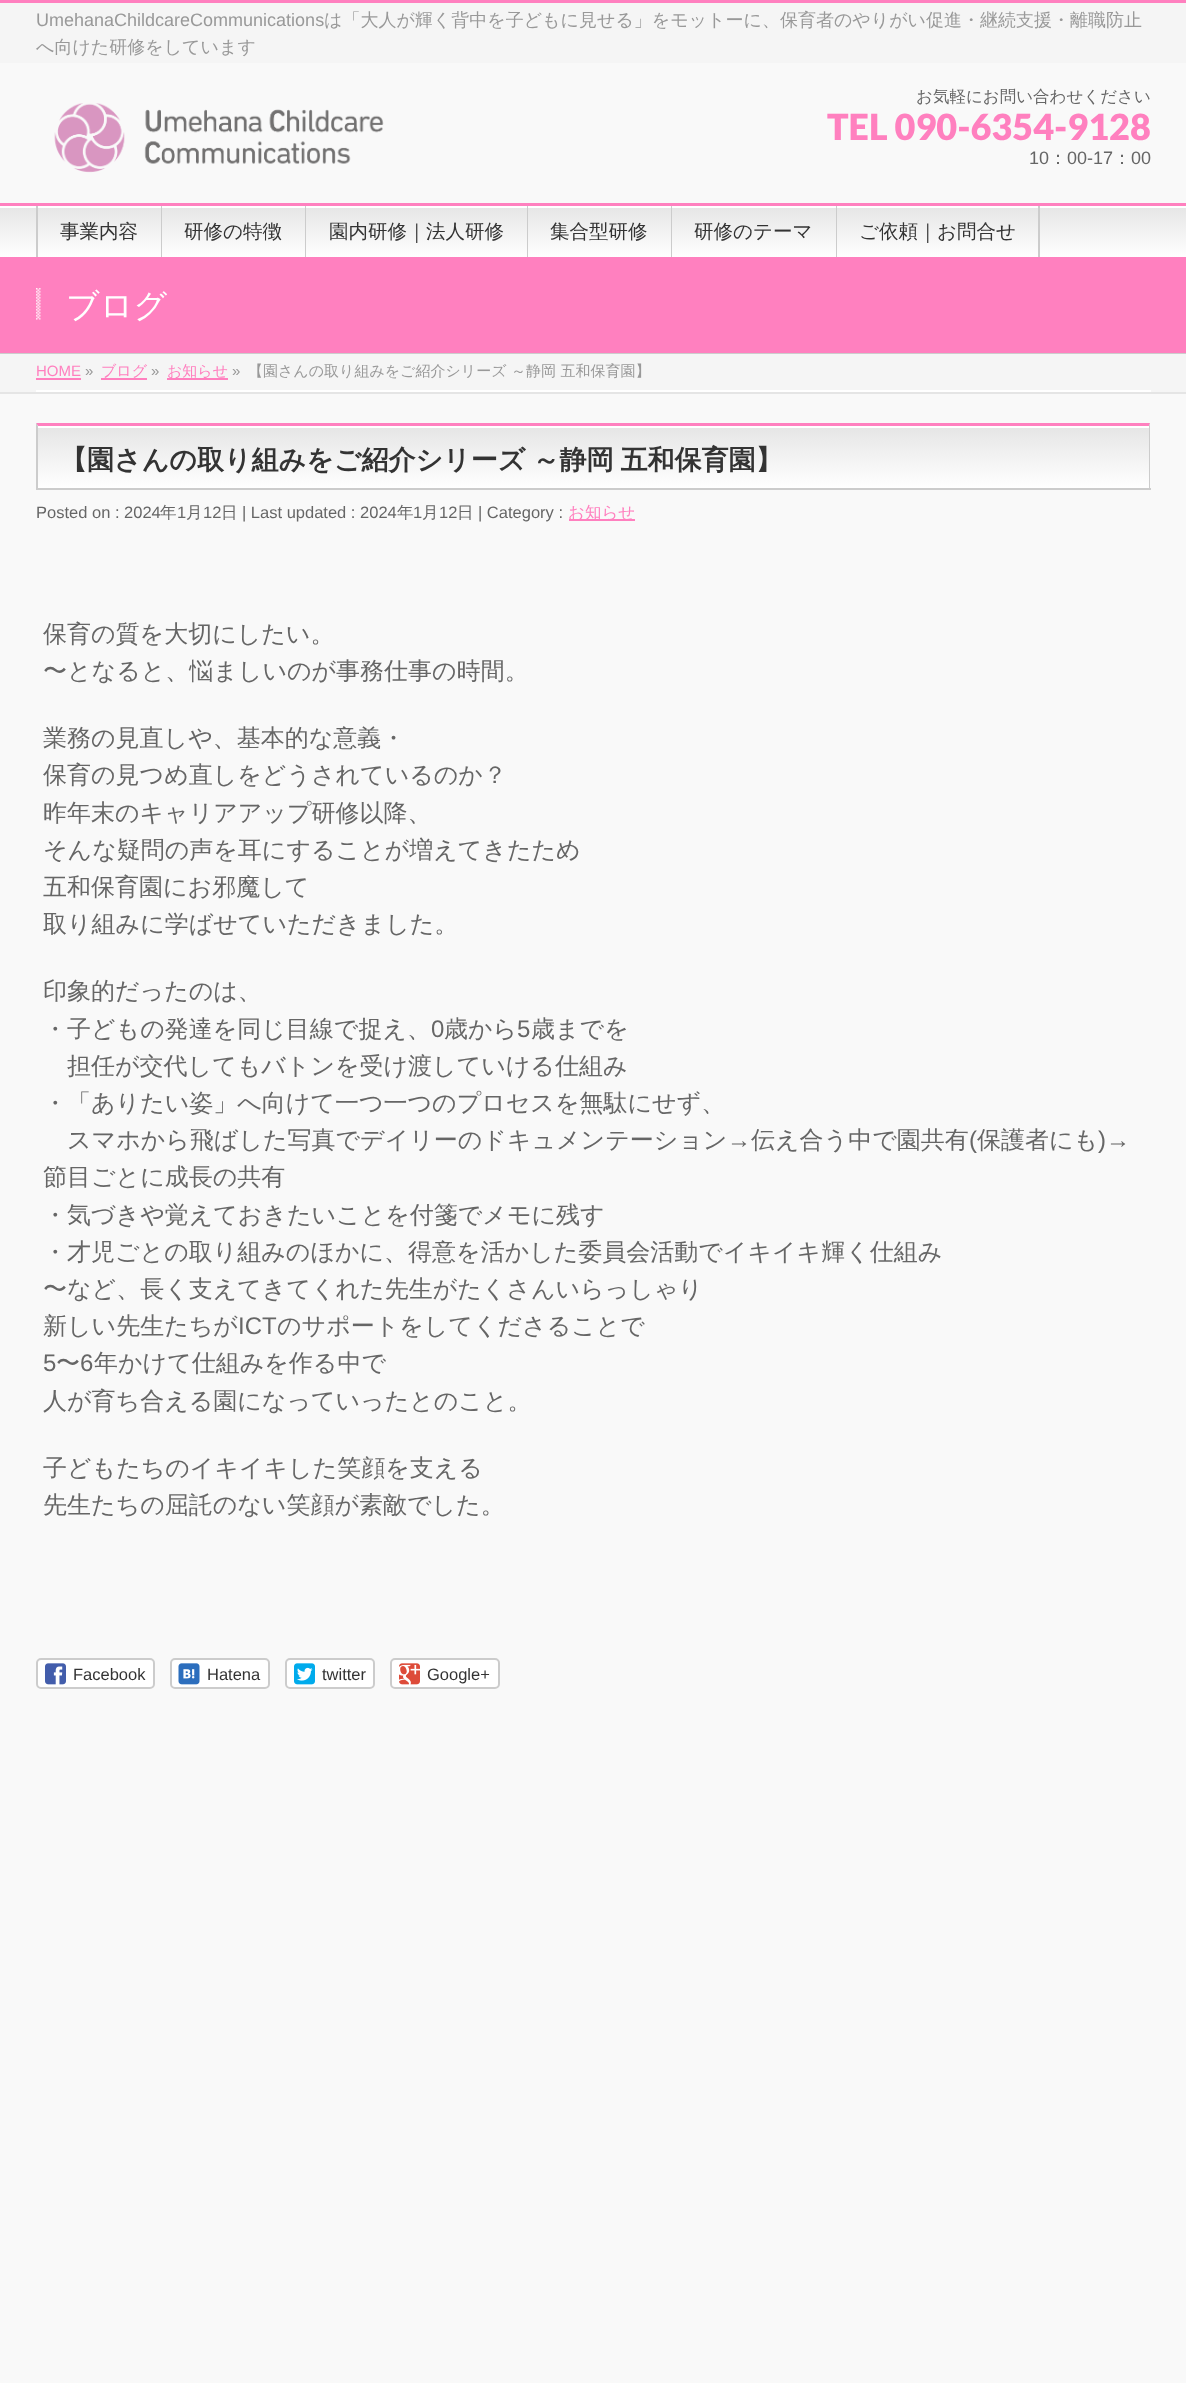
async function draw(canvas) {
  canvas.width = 1186
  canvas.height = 2383
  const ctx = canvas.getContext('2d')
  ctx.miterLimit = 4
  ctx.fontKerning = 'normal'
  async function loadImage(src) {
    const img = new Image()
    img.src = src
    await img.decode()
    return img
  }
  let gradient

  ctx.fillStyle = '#f9f9f9'
  ctx.fillRect(0, 0, 1186, 2383)
  ctx.fillStyle = '#f5f5f5'
  ctx.fillRect(0, 3, 1186, 60)
  ctx.fillStyle = '#ff80bf'
  ctx.fillRect(0, 0, 1186, 3)
  ctx.font = '18px Liberation Sans'
  ctx.fillStyle = '#999'
  ctx.fillText('UmehanaChildcareCommunications', 36, 26)
  ctx.font = '500 18px WenQuanYi Zen Hei'
  ctx.fillText('は「大人が輝く背中を子どもに見せる」をモットーに、保育者のやりがい促進・継続支援・離職防止', 324, 26)
  ctx.fillText('へ向けた研修をしています', 36, 53)
  ctx.drawImage(await loadImage('image0.png'), 54, 103, 330, 70)
  ctx.font = '500 16.5px WenQuanYi Zen Hei'
  ctx.fillStyle = '#666'
  ctx.fillText('お気軽にお問い合わせください', 916, 102)
  ctx.font = '900 36px Lato'
  ctx.fillStyle = '#ff80bf'
  ctx.fillText('TEL 090-6354-9128', 827, 140)
  ctx.font = '18px Liberation Sans'
  ctx.fillStyle = '#666'
  ctx.fillText('10', 1029, 164)
  ctx.font = '500 18px WenQuanYi Zen Hei'
  ctx.fillText('：', 1049, 164)
  ctx.font = '18px Liberation Sans'
  ctx.fillText('00-17', 1067, 164)
  ctx.font = '500 18px WenQuanYi Zen Hei'
  ctx.fillText('：', 1113, 164)
  ctx.font = '18px Liberation Sans'
  ctx.fillText('00', 1131, 164)
  gradient = ctx.createLinearGradient(593, 205, 593, 257)
  gradient.addColorStop(0, '#e5e5e5')
  gradient.addColorStop(1, '#fff')
  ctx.fillStyle = gradient
  ctx.fillRect(0, 208, 1186, 49)
  ctx.fillStyle = '#fff'
  ctx.fillRect(0, 206, 1186, 2)
  ctx.fillStyle = '#ff80bf'
  ctx.fillRect(0, 203, 1186, 3)
  ctx.fillStyle = '#ccc'
  ctx.fillRect(36, 206, 2, 51)
  ctx.fillRect(161, 206, 1, 51)
  ctx.font = '500 19.5px WenQuanYi Zen Hei'
  ctx.fillStyle = '#333'
  ctx.fillText('事業内容', 60, 238)
  ctx.fillStyle = '#ccc'
  ctx.fillRect(305, 206, 1, 51)
  ctx.fillStyle = '#333'
  ctx.fillText('研修の特徴', 184, 238)
  ctx.fillStyle = '#ccc'
  ctx.fillRect(527, 206, 1, 51)
  ctx.fillStyle = '#333'
  ctx.fillText('園内研修｜法人研修', 329, 238)
  ctx.fillStyle = '#ccc'
  ctx.fillRect(671, 206, 1, 51)
  ctx.fillStyle = '#333'
  ctx.fillText('集合型研修', 550, 238)
  ctx.fillStyle = '#ccc'
  ctx.fillRect(836, 206, 1, 51)
  ctx.fillStyle = '#333'
  ctx.fillText('研修のテーマ', 694, 238)
  ctx.fillStyle = '#ccc'
  ctx.fillRect(1038, 206, 2, 51)
  ctx.fillStyle = '#333'
  ctx.fillText('ご依頼｜お問合せ', 859, 238)
  ctx.fillStyle = '#ff80bf'
  ctx.fillRect(0, 257, 1186, 96)
  ctx.fillStyle = '#ccc'
  ctx.fillRect(0, 353, 1186, 1)
  ctx.drawImage(await loadImage('image1.png'), 36, 288, 5, 32)
  ctx.font = '500 33px WenQuanYi Zen Hei'
  ctx.fillStyle = '#fff'
  ctx.fillText('ブログ', 66, 317)
  ctx.fillStyle = '#f5f5f5'
  ctx.fillRect(0, 354, 1186, 38)
  ctx.fillStyle = '#e5e5e5'
  ctx.fillRect(0, 392, 1186, 2)
  ctx.fillStyle = '#fff'
  ctx.fillRect(36, 390, 1115, 2)
  ctx.font = '15px Liberation Sans'
  ctx.fillStyle = '#ff80bf'
  ctx.fillText('HOME', 36, 376)
  ctx.fillRect(36, 378, 45, 2)
  ctx.fillStyle = '#999'
  ctx.fillText('»', 85, 376)
  ctx.font = '500 15px WenQuanYi Zen Hei'
  ctx.fillStyle = '#ff80bf'
  ctx.fillText('ブログ', 101, 376)
  ctx.fillRect(101, 378, 46, 2)
  ctx.font = '15px Liberation Sans'
  ctx.fillStyle = '#999'
  ctx.fillText('»', 151, 376)
  ctx.fillStyle = '#ff80bf'
  ctx.fillRect(167, 378, 61, 2)
  ctx.font = '500 15px WenQuanYi Zen Hei'
  ctx.fillText('お知らせ', 167, 376)
  ctx.font = '15px Liberation Sans'
  ctx.fillStyle = '#999'
  ctx.fillText('»', 232, 376)
  ctx.font = '500 15px WenQuanYi Zen Hei'
  ctx.fillText('【園さんの取り組みをご紹介シリーズ ～静岡 五和保育園】', 248, 376)
  gradient = ctx.createLinearGradient(38, 426, 38, 488)
  gradient.addColorStop(0, '#e5e5e5')
  gradient.addColorStop(1, '#fff')
  ctx.fillStyle = gradient
  ctx.fillRect(38, 428, 1111, 60)
  ctx.fillStyle = '#fff'
  ctx.fillRect(38, 426, 1111, 2)
  ctx.fillStyle = '#ff80bf'
  ctx.beginPath()
  ctx.moveTo(36, 423)
  ctx.lineTo(1150, 423)
  ctx.lineTo(1149, 426)
  ctx.lineTo(38, 426)
  ctx.closePath()
  ctx.fill()
  ctx.fillStyle = '#ccc'
  ctx.beginPath()
  ctx.moveTo(1150, 423)
  ctx.lineTo(1150, 489)
  ctx.lineTo(1149, 488)
  ctx.lineTo(1149, 426)
  ctx.closePath()
  ctx.fill()
  ctx.fillRect(36, 488, 1115, 2)
  ctx.beginPath()
  ctx.moveTo(36, 489)
  ctx.lineTo(36, 423)
  ctx.lineTo(38, 426)
  ctx.lineTo(38, 488)
  ctx.closePath()
  ctx.fill()
  ctx.wordSpacing = '-1px'
  ctx.font = 'bold 27px WenQuanYi Zen Hei'
  ctx.fillStyle = '#333'
  ctx.fillText('【園さんの取り組みをご紹介シリーズ ～静岡 五和保育園】', 60, 469)
  ctx.wordSpacing = '0px'
  ctx.font = '16.5px Liberation Sans'
  ctx.fillStyle = '#666'
  ctx.fillText('Posted on : 2024', 36, 518)
  ctx.font = '500 16.5px WenQuanYi Zen Hei'
  ctx.fillText('年', 160, 518)
  ctx.font = '16.5px Liberation Sans'
  ctx.fillText('1', 177, 518)
  ctx.font = '500 16.5px WenQuanYi Zen Hei'
  ctx.fillText('月', 186, 518)
  ctx.font = '16.5px Liberation Sans'
  ctx.fillText('12', 203, 518)
  ctx.font = '500 16.5px WenQuanYi Zen Hei'
  ctx.fillText('日', 221, 518)
  ctx.font = '16.5px Liberation Sans'
  ctx.fillText('| Last updated : 2024', 242, 518)
  ctx.font = '500 16.5px WenQuanYi Zen Hei'
  ctx.fillText('年', 397, 518)
  ctx.font = '16.5px Liberation Sans'
  ctx.fillText('1', 413, 518)
  ctx.font = '500 16.5px WenQuanYi Zen Hei'
  ctx.fillText('月', 422, 518)
  ctx.font = '16.5px Liberation Sans'
  ctx.fillText('12', 439, 518)
  ctx.font = '500 16.5px WenQuanYi Zen Hei'
  ctx.fillText('日', 457, 518)
  ctx.font = '16.5px Liberation Sans'
  ctx.fillText('| Category :', 478, 518)
  ctx.fillStyle = '#ff80bf'
  ctx.fillRect(569, 519, 66, 2)
  ctx.font = '500 16.5px WenQuanYi Zen Hei'
  ctx.fillText('お知らせ', 568, 518)
  ctx.font = '500 24px WenQuanYi Zen Hei'
  ctx.fillStyle = '#666'
  ctx.fillText('保育の質を大切にしたい。', 43, 642)
  ctx.fillText('〜となると、悩ましいのが事務仕事の時間。', 43, 679)
  ctx.fillText('業務の見直しや、基本的な意義・', 43, 746)
  ctx.fillText('保育の見つめ直しをどうされているのか？', 43, 783)
  ctx.fillText('昨年末のキャリアアップ研修以降、', 43, 821)
  ctx.fillText('そんな疑問の声を耳にすることが増えてきたため', 43, 858)
  ctx.fillText('五和保育園にお邪魔して', 43, 895)
  ctx.fillText('取り組みに学ばせていただきました。', 43, 932)
  ctx.fillText('印象的だったのは、', 43, 999)
  ctx.fillText('・子どもの発達を同じ目線で捉え、', 43, 1037)
  ctx.font = '24px Liberation Sans'
  ctx.fillText('0', 431, 1037)
  ctx.font = '500 24px WenQuanYi Zen Hei'
  ctx.fillText('歳から', 444, 1037)
  ctx.font = '24px Liberation Sans'
  ctx.fillText('5', 517, 1037)
  ctx.font = '500 24px WenQuanYi Zen Hei'
  ctx.fillText('歳までを', 531, 1037)
  ctx.fillText('担任が交代してもバトンを受け渡していける仕組み', 67, 1074)
  ctx.fillText('・「ありたい姿」へ向けて一つ一つのプロセスを無駄にせず、', 43, 1111)
  ctx.fillText('スマホから飛ばした写真でデイリーのドキュメンテーション', 67, 1148)
  ctx.font = '24px Liberation Sans'
  ctx.fillText('→', 727, 1148)
  ctx.font = '500 24px WenQuanYi Zen Hei'
  ctx.fillText('伝え合う中で園共有', 751, 1148)
  ctx.font = '24px Liberation Sans'
  ctx.fillText('(', 969, 1148)
  ctx.font = '500 24px WenQuanYi Zen Hei'
  ctx.fillText('保護者にも', 977, 1148)
  ctx.font = '24px Liberation Sans'
  ctx.fillText(')→', 1098, 1148)
  ctx.font = '500 24px WenQuanYi Zen Hei'
  ctx.fillText('節目ごとに成長の共有', 43, 1185)
  ctx.fillText('・気づきや覚えておきたいことを付箋でメモに残す', 43, 1223)
  ctx.fillText('・才児ごとの取り組みのほかに、得意を活かした委員会活動でイキイキ輝く仕組み', 43, 1260)
  ctx.fillText('〜など、長く支えてきてくれた先生がたくさんいらっしゃり', 43, 1297)
  ctx.fillText('新しい先生たちが', 43, 1334)
  ctx.font = '24px Liberation Sans'
  ctx.fillText('ICT', 238, 1334)
  ctx.font = '500 24px WenQuanYi Zen Hei'
  ctx.fillText('のサポートをしてくださることで', 277, 1334)
  ctx.font = '24px Liberation Sans'
  ctx.fillText('5', 43, 1371)
  ctx.font = '500 24px WenQuanYi Zen Hei'
  ctx.fillText('〜', 56, 1371)
  ctx.font = '24px Liberation Sans'
  ctx.fillText('6', 80, 1371)
  ctx.font = '500 24px WenQuanYi Zen Hei'
  ctx.fillText('年かけて仕組みを作る中で', 94, 1371)
  ctx.fillText('人が育ち合える園になっていったとのこと。', 43, 1409)
  ctx.fillText('子どもたちのイキイキした笑顔を支える', 43, 1476)
  ctx.fillText('先生たちの屈託のない笑顔が素敵でした。', 43, 1513)
  ctx.fillStyle = '#fff'
  ctx.beginPath()
  ctx.roundRect(37, 1659, 117, 29, 4)
  ctx.fill()
  ctx.strokeStyle = '#ccc'
  ctx.lineWidth = 2
  ctx.stroke()
  ctx.drawImage(await loadImage('image2.png'), 45, 1663, 21, 22)
  ctx.font = '16.5px Liberation Sans'
  ctx.fillStyle = '#333'
  ctx.fillText('Facebook', 73, 1680)
  ctx.fillStyle = '#fff'
  ctx.beginPath()
  ctx.roundRect(171, 1659, 98, 29, 4)
  ctx.fill()
  ctx.stroke()
  ctx.drawImage(await loadImage('image3.png'), 178, 1663, 22, 22)
  ctx.fillStyle = '#333'
  ctx.fillText('Hatena', 207, 1680)
  ctx.fillStyle = '#fff'
  ctx.beginPath()
  ctx.roundRect(286, 1659, 88, 29, 4)
  ctx.fill()
  ctx.stroke()
  ctx.drawImage(await loadImage('image4.png'), 294, 1663, 21, 22)
  ctx.fillStyle = '#333'
  ctx.fillText('twitter', 322, 1680)
  ctx.fillStyle = '#fff'
  ctx.beginPath()
  ctx.roundRect(391, 1659, 108, 29, 4)
  ctx.fill()
  ctx.stroke()
  ctx.drawImage(await loadImage('image5.png'), 399, 1663, 21, 22)
  ctx.fillStyle = '#333'
  ctx.fillText('Google+', 427, 1680)
}

draw(document.querySelector('canvas'))
